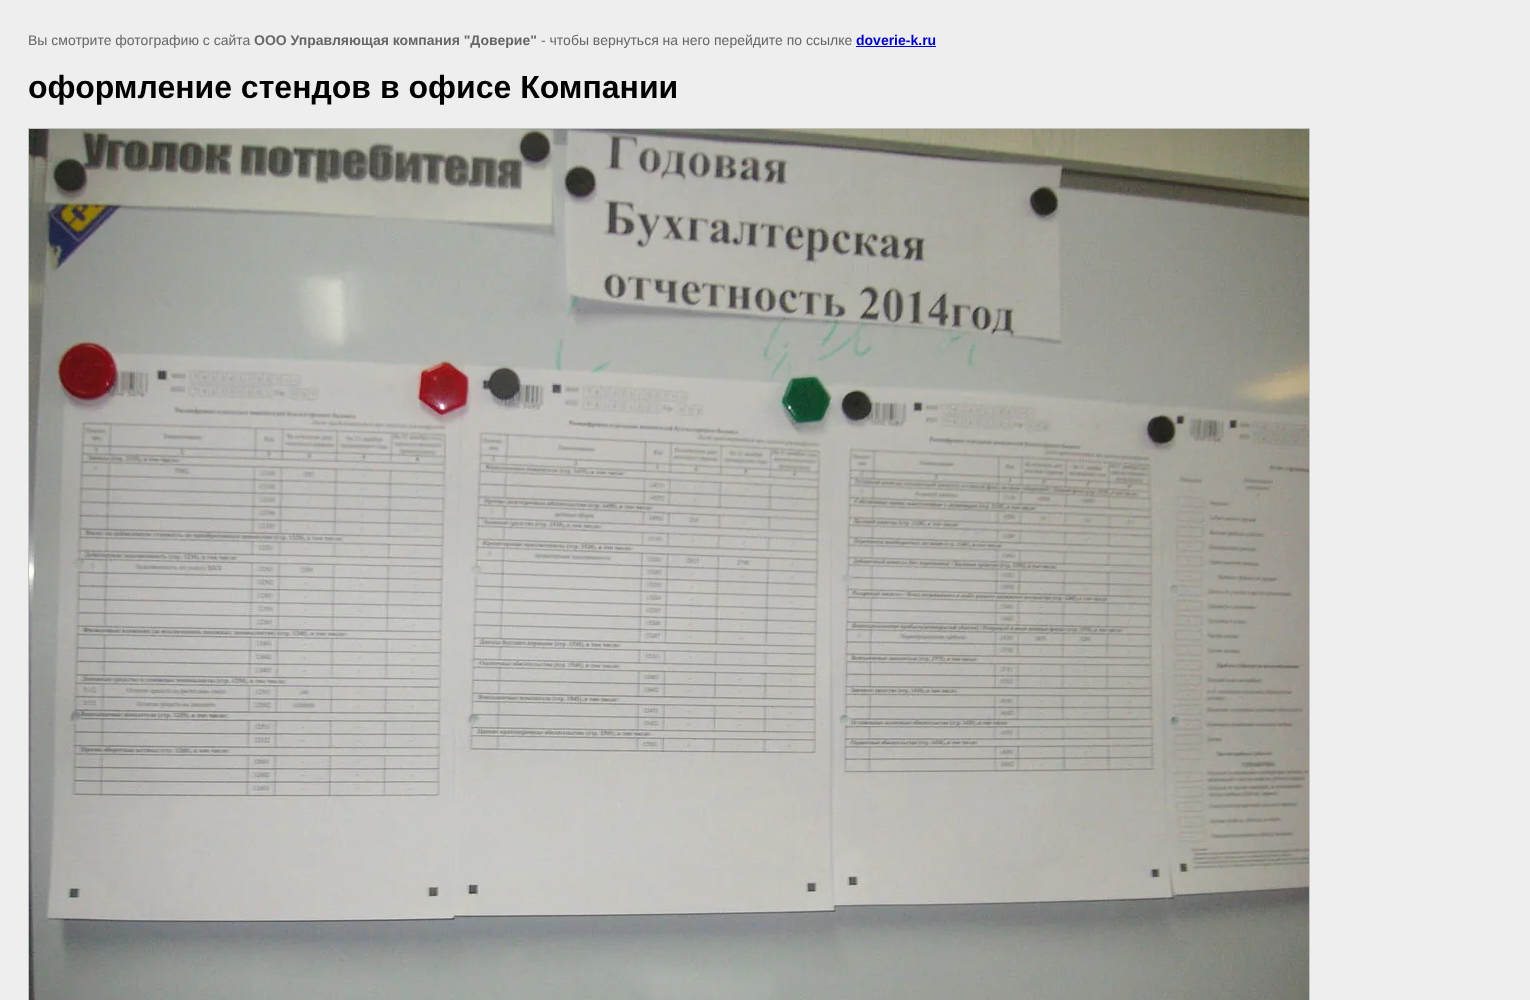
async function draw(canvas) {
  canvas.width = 1530
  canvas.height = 1000
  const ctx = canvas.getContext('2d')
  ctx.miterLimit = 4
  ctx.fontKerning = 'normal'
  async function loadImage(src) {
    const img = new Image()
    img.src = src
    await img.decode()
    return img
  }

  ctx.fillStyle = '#eee'
  ctx.fillRect(0, 0, 1530, 1000)
  ctx.font = '14px Liberation Sans'
  ctx.fillStyle = '#666'
  ctx.fillText('Вы смотрите фотографию с сайта', 28, 45)
  ctx.font = 'bold 14px Liberation Sans'
  ctx.fillText('ООО Управляющая компания "Доверие"', 254, 45)
  ctx.font = '14px Liberation Sans'
  ctx.fillText('- чтобы вернуться на него перейдите по ссылке', 541, 45)
  ctx.font = 'bold 14px Liberation Sans'
  ctx.fillStyle = '#00c'
  ctx.fillText('doverie-k.ru', 856, 45)
  ctx.fillRect(856, 46, 80, 1)
  ctx.font = 'bold 32px Liberation Sans'
  ctx.fillStyle = '#000'
  ctx.fillText('оформление стендов в офисе Компании', 28, 98)
  ctx.strokeStyle = '#c0c0c0'
  ctx.strokeRect(28.5, 128.5, 1281, 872)
  ctx.drawImage(await loadImage('image0.png'), 29, 129, 1280, 871)
}

draw(document.querySelector('canvas'))
